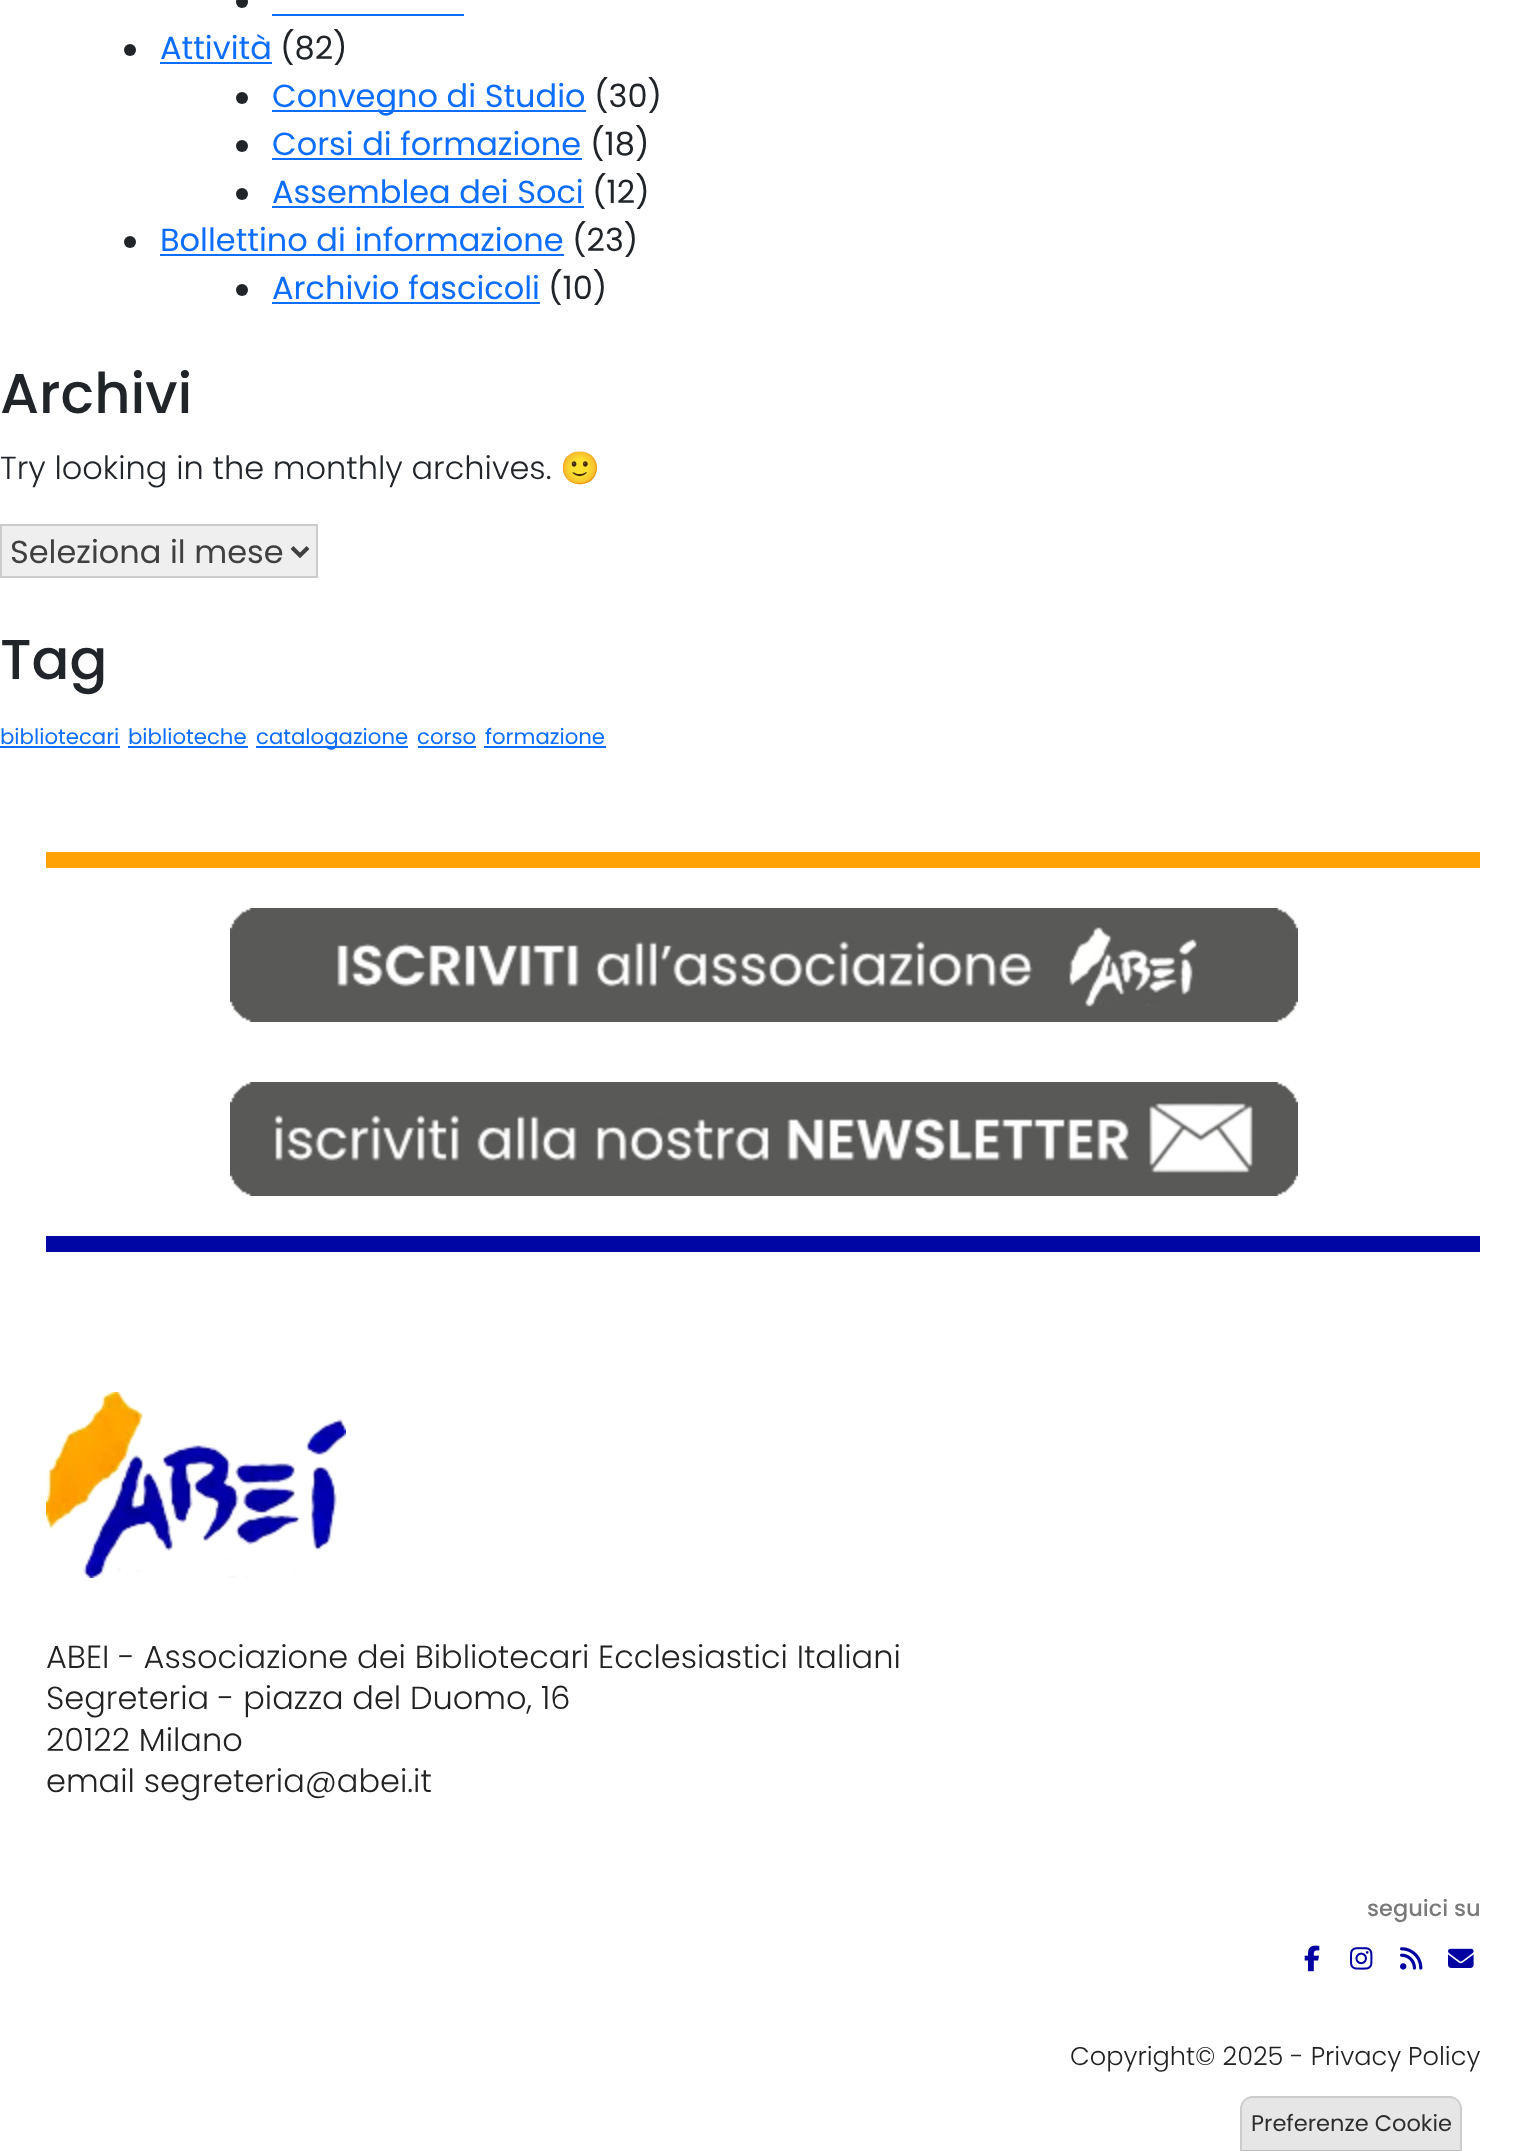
async function draw(canvas) {
  canvas.width = 1525
  canvas.height = 2151
  const ctx = canvas.getContext('2d')
  ctx.miterLimit = 4
  ctx.fontKerning = 'normal'
  async function loadImage(src) {
    const img = new Image()
    img.src = src
    await img.decode()
    return img
  }

  ctx.fillStyle = '#fff'
  ctx.fillRect(0, 0, 1525, 2151)
  ctx.fillStyle = '#212529'
  ctx.beginPath()
  ctx.arc(242, 2, 6, 0, 2 * Math.PI)
  ctx.fill()
  ctx.fillStyle = '#0d6efd'
  ctx.fillRect(272, 14, 192, 2)
  ctx.fillStyle = '#212529'
  ctx.beginPath()
  ctx.arc(130, 50, 6, 0, 2 * Math.PI)
  ctx.fill()
  ctx.font = '32px Poppins'
  ctx.fillStyle = '#0d6efd'
  ctx.fillText('Attività', 160, 59)
  ctx.fillRect(160, 62, 112, 2)
  ctx.fillStyle = '#212529'
  ctx.fillText('(82)', 280, 59)
  ctx.beginPath()
  ctx.arc(242, 98, 6, 0, 2 * Math.PI)
  ctx.fill()
  ctx.fillStyle = '#0d6efd'
  ctx.fillRect(272, 110, 314, 2)
  ctx.fillText('Convegno di Studio', 272, 107)
  ctx.fillStyle = '#212529'
  ctx.fillText('(30)', 594, 107)
  ctx.beginPath()
  ctx.arc(242, 146, 6, 0, 2 * Math.PI)
  ctx.fill()
  ctx.fillStyle = '#0d6efd'
  ctx.fillText('Corsi di formazione', 272, 155)
  ctx.fillRect(272, 158, 310, 2)
  ctx.fillStyle = '#212529'
  ctx.fillText('(18)', 590, 155)
  ctx.beginPath()
  ctx.arc(242, 194, 6, 0, 2 * Math.PI)
  ctx.fill()
  ctx.fillStyle = '#0d6efd'
  ctx.fillText('Assemblea dei Soci', 272, 203)
  ctx.fillRect(272, 206, 312, 2)
  ctx.fillStyle = '#212529'
  ctx.fillText('(12)', 592, 203)
  ctx.beginPath()
  ctx.arc(130, 242, 6, 0, 2 * Math.PI)
  ctx.fill()
  ctx.fillStyle = '#0d6efd'
  ctx.fillText('Bollettino di informazione', 160, 251)
  ctx.fillRect(160, 254, 404, 2)
  ctx.fillStyle = '#212529'
  ctx.fillText('(23)', 572, 251)
  ctx.beginPath()
  ctx.arc(242, 290, 6, 0, 2 * Math.PI)
  ctx.fill()
  ctx.fillStyle = '#0d6efd'
  ctx.fillText('Archivio fascicoli', 272, 299)
  ctx.fillRect(272, 302, 268, 2)
  ctx.fillStyle = '#212529'
  ctx.fillText('(10)', 548, 299)
  ctx.font = '500 56px Poppins'
  ctx.fillText('Archivi', 0, 413)
  ctx.font = '300 32px Poppins'
  ctx.fillText('Try looking in the monthly archives.', 0, 479)
  ctx.font = '32px Noto Color Emoji'
  ctx.fillText('🙂', 560, 479)
  ctx.fillStyle = '#efefef'
  ctx.beginPath()
  ctx.rect(1, 525, 316, 52)
  ctx.fill()
  ctx.strokeStyle = '#ccc'
  ctx.lineWidth = 2
  ctx.stroke()
  ctx.beginPath()
  ctx.moveTo(292, 547.5)
  ctx.lineTo(300, 555.5)
  ctx.lineTo(308, 547.5)
  ctx.strokeStyle = '#404040'
  ctx.lineWidth = 4
  ctx.stroke()
  ctx.font = '32px Poppins'
  ctx.fillStyle = '#404040'
  ctx.fillText('Seleziona il mese', 10, 563)
  ctx.font = '500 56px Poppins'
  ctx.fillStyle = '#212529'
  ctx.fillText('Tag', 0, 679)
  ctx.font = '21.25px Poppins'
  ctx.fillStyle = '#0d6efd'
  ctx.fillText('bibliotecari', 0, 744)
  ctx.fillRect(0, 746, 120, 2)
  ctx.fillText('biblioteche', 128, 744)
  ctx.fillRect(128, 746, 120, 2)
  ctx.fillRect(256, 746, 152, 2)
  ctx.fillText('catalogazione', 256, 744)
  ctx.fillText('corso', 417, 744)
  ctx.fillRect(418, 746, 58, 2)
  ctx.fillText('formazione', 485, 744)
  ctx.fillRect(484, 746, 122, 2)
  ctx.fillStyle = '#ffa206'
  ctx.fillRect(46, 852, 1434, 16)
  ctx.fillStyle = '#0006a3'
  ctx.fillRect(46, 1236, 1434, 16)
  ctx.drawImage(await loadImage('image0.png'), 230, 908, 1068, 114)
  ctx.drawImage(await loadImage('image1.png'), 230, 1082, 1068, 114)
  ctx.drawImage(await loadImage('image2.png'), 46, 1392, 300, 186)
  ctx.font = '300 32px Poppins'
  ctx.fillStyle = '#222'
  ctx.fillText('ABEI - Associazione dei Bibliotecari Ecclesiastici Italiani', 46, 1668)
  ctx.fillText('Segreteria - piazza del Duomo, 16', 46, 1709)
  ctx.fillText('20122 Milano', 46, 1751)
  ctx.fillText('email segreteria@abei.it', 46, 1792)
  ctx.font = '500 22.5px Poppins'
  ctx.fillStyle = '#7a7a7a'
  ctx.fillText('seguici su', 1367, 1916)
  ctx.drawImage(await loadImage('image3.png'), 1304, 1945, 16, 27)
  ctx.drawImage(await loadImage('image4.png'), 1350, 1947, 23, 23)
  ctx.drawImage(await loadImage('image5.png'), 1400, 1947, 23, 23)
  ctx.drawImage(await loadImage('image6.png'), 1448, 1948, 26, 20)
  ctx.font = '300 25.6px Poppins'
  ctx.fillStyle = '#222'
  ctx.fillText('Copyright© 2025 - Privacy Policy', 1070, 2065)
  ctx.fillStyle = '#e6e6e6'
  ctx.beginPath()
  ctx.moveTo(1252, 2096)
  ctx.lineTo(1450, 2096)
  ctx.bezierCurveTo(1456.5, 2096, 1462, 2101.5, 1462, 2108)
  ctx.lineTo(1462, 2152)
  ctx.lineTo(1240, 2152)
  ctx.lineTo(1240, 2108)
  ctx.bezierCurveTo(1240, 2101.5, 1245.5, 2096, 1252, 2096)
  ctx.closePath()
  ctx.fill()
  ctx.fillStyle = '#ccc'
  ctx.beginPath()
  ctx.moveTo(1253, 2096)
  ctx.bezierCurveTo(1250, 2096, 1246, 2098, 1244, 2100)
  ctx.lineTo(1245, 2101)
  ctx.bezierCurveTo(1247, 2099, 1250, 2098, 1253, 2098)
  ctx.lineTo(1449, 2098)
  ctx.bezierCurveTo(1452, 2098, 1455, 2099, 1457, 2101)
  ctx.lineTo(1458, 2100)
  ctx.bezierCurveTo(1456, 2098, 1452, 2096, 1449, 2096)
  ctx.closePath()
  ctx.fill()
  ctx.beginPath()
  ctx.moveTo(1462, 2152)
  ctx.lineTo(1462, 2109)
  ctx.bezierCurveTo(1462, 2106, 1460, 2102, 1458, 2100)
  ctx.lineTo(1457, 2101)
  ctx.bezierCurveTo(1459, 2103, 1460, 2106, 1460, 2109)
  ctx.lineTo(1460, 2150)
  ctx.closePath()
  ctx.fill()
  ctx.fillStyle = '#bbb'
  ctx.beginPath()
  ctx.moveTo(1462, 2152)
  ctx.lineTo(1460, 2150)
  ctx.lineTo(1242, 2150)
  ctx.lineTo(1240, 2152)
  ctx.closePath()
  ctx.fill()
  ctx.fillStyle = '#ccc'
  ctx.beginPath()
  ctx.moveTo(1240, 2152)
  ctx.lineTo(1242, 2150)
  ctx.lineTo(1242, 2109)
  ctx.bezierCurveTo(1242, 2106, 1243, 2103, 1245, 2101)
  ctx.lineTo(1244, 2100)
  ctx.bezierCurveTo(1242, 2102, 1240, 2106, 1240, 2109)
  ctx.closePath()
  ctx.fill()
  ctx.font = '22.5px Poppins'
  ctx.fillStyle = '#2e2e2e'
  ctx.fillText('Preferenze Cookie', 1251, 2131)
}

draw(document.querySelector('canvas'))
